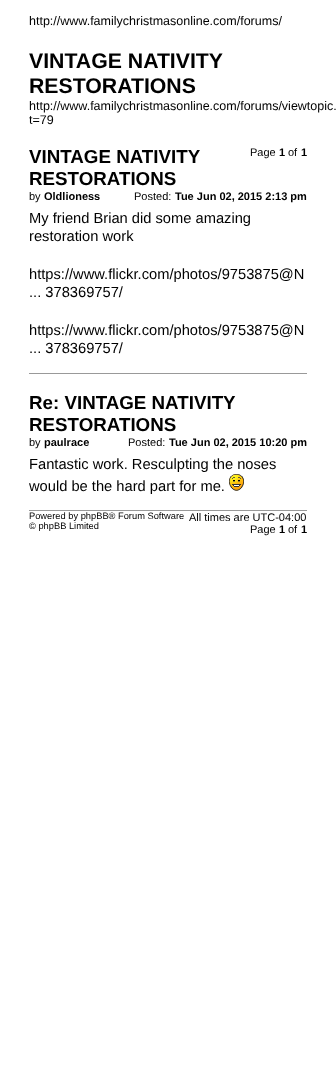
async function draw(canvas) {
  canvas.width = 336
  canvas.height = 1087
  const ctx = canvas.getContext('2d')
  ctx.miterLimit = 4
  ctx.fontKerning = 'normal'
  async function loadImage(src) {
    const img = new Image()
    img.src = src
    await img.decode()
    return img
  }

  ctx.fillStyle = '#fff'
  ctx.fillRect(0, 0, 336, 1087)
  ctx.font = '12.5px Liberation Sans'
  ctx.fillStyle = '#000'
  ctx.fillText('http://www.familychristmasonline.com/forums/', 29, 25)
  ctx.font = 'bold 21.25px Liberation Sans'
  ctx.fillText('VINTAGE NATIVITY', 29, 68)
  ctx.fillText('RESTORATIONS', 29, 93)
  ctx.font = '12.5px Liberation Sans'
  ctx.fillText('http://www.familychristmasonline.com/forums/viewtopic.', 29, 110)
  ctx.fillText('t=79', 29, 124)
  ctx.font = '11px Liberation Sans'
  ctx.fillText('Page', 250, 156)
  ctx.font = 'bold 11px Liberation Sans'
  ctx.fillText('1', 279, 156)
  ctx.font = '11px Liberation Sans'
  ctx.fillText('of', 288, 156)
  ctx.font = 'bold 11px Liberation Sans'
  ctx.fillText('1', 301, 156)
  ctx.font = 'bold 18.75px Liberation Sans'
  ctx.fillText('VINTAGE NATIVITY', 29, 163)
  ctx.fillText('RESTORATIONS', 29, 185)
  ctx.font = '11px Liberation Sans'
  ctx.fillText('by', 29, 200)
  ctx.font = 'bold 11px Liberation Sans'
  ctx.fillText('Oldlioness', 44, 200)
  ctx.font = '11px Liberation Sans'
  ctx.fillText('Posted:', 134, 200)
  ctx.font = 'bold 11px Liberation Sans'
  ctx.fillText('Tue Jun 02, 2015 2:13 pm', 175, 200)
  ctx.font = '14.7px Liberation Sans'
  ctx.fillText('My friend Brian did some amazing', 29, 223)
  ctx.fillText('restoration work', 29, 241)
  ctx.fillText('https://www.flickr.com/photos/9753875@N', 29, 279)
  ctx.fillText('... 378369757/', 29, 297)
  ctx.fillText('https://www.flickr.com/photos/9753875@N', 29, 335)
  ctx.fillText('... 378369757/', 29, 353)
  ctx.fillStyle = '#999'
  ctx.fillRect(29, 373, 278, 1)
  ctx.font = 'bold 18.75px Liberation Sans'
  ctx.fillStyle = '#000'
  ctx.fillText('Re: VINTAGE NATIVITY', 29, 409)
  ctx.fillText('RESTORATIONS', 29, 431)
  ctx.font = '11px Liberation Sans'
  ctx.fillText('by', 29, 446)
  ctx.font = 'bold 11px Liberation Sans'
  ctx.fillText('paulrace', 44, 446)
  ctx.font = '11px Liberation Sans'
  ctx.fillText('Posted:', 128, 446)
  ctx.font = 'bold 11px Liberation Sans'
  ctx.fillText('Tue Jun 02, 2015 10:20 pm', 169, 446)
  ctx.font = '14.7px Liberation Sans'
  ctx.fillText('Fantastic work. Resculpting the noses', 29, 469)
  ctx.fillText('would be the hard part for me.', 29, 491)
  ctx.drawImage(await loadImage('image0.png'), 229, 474, 15, 17)
  ctx.fillStyle = '#999'
  ctx.fillRect(29, 510, 278, 1)
  ctx.font = '9.3px Liberation Sans'
  ctx.fillStyle = '#000'
  ctx.fillText('Powered by phpBB® Forum Software', 29, 519)
  ctx.fillText('© phpBB Limited', 29, 529)
  ctx.font = '11px Liberation Sans'
  ctx.fillText('All times are UTC-04:00', 189, 521)
  ctx.fillText('Page', 250, 533)
  ctx.font = 'bold 11px Liberation Sans'
  ctx.fillText('1', 279, 533)
  ctx.font = '11px Liberation Sans'
  ctx.fillText('of', 288, 533)
  ctx.font = 'bold 11px Liberation Sans'
  ctx.fillText('1', 301, 533)
}

draw(document.querySelector('canvas'))
